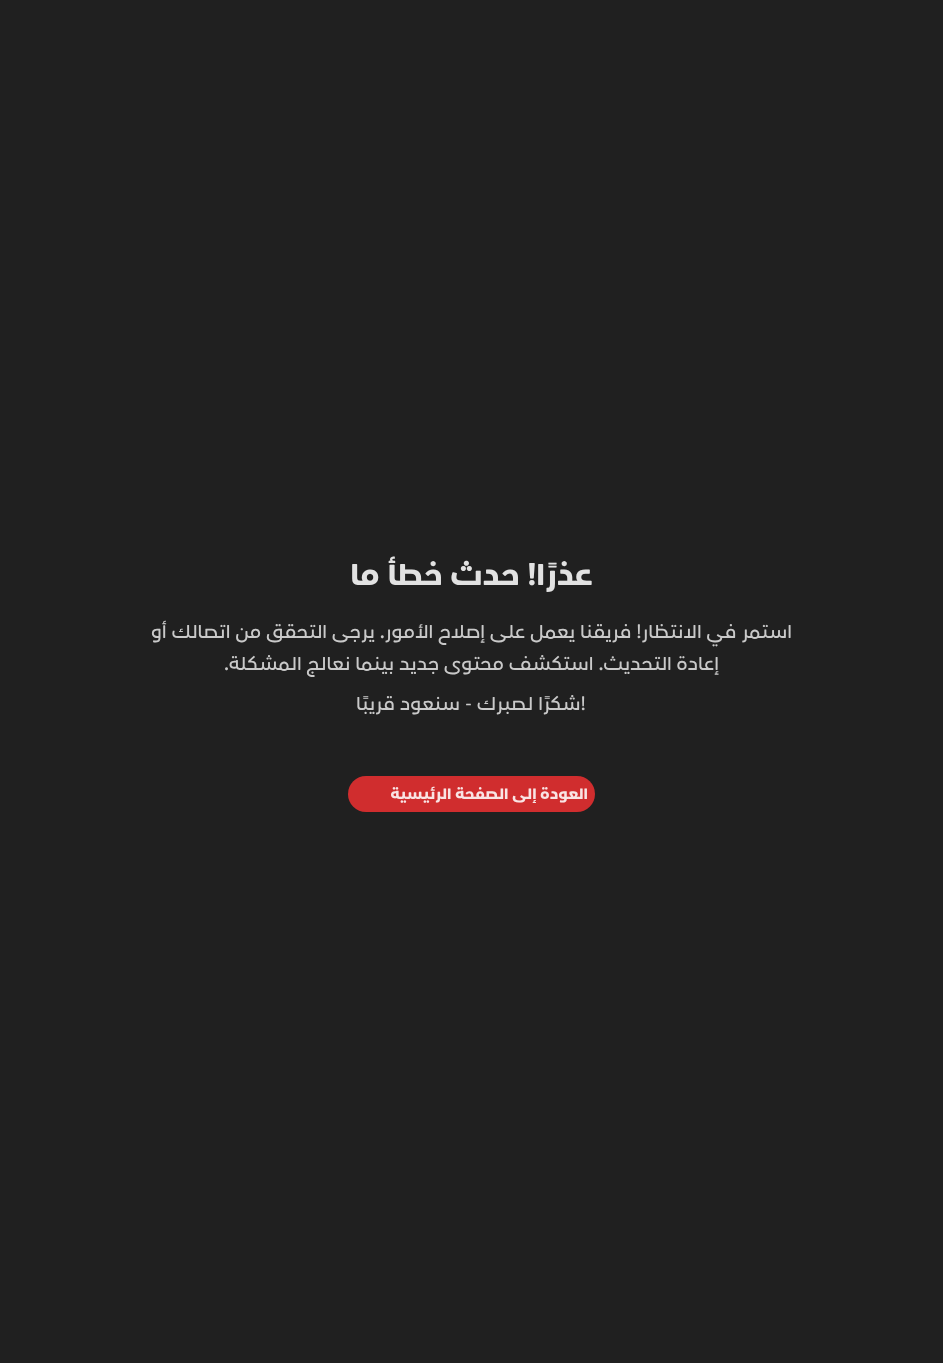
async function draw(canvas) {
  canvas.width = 943
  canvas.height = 1363
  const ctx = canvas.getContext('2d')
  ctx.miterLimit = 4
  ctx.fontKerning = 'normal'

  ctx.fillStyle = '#202020'
  ctx.fillRect(0, 0, 943, 1363)
  ctx.direction = 'rtl'
  ctx.font = 'bold 32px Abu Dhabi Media'
  ctx.fillStyle = '#e2e2e2'
  ctx.fillText('عذرًا! حدث خطأ ما', 593, 585)
  ctx.font = '20px Abu Dhabi Media'
  ctx.fillStyle = '#c9c9c9'
  ctx.fillText('استمر في الانتظار! فريقنا يعمل على إصلاح الأمور. يرجى التحقق من اتصالك أو', 792, 638)
  ctx.fillText('إعادة التحديث. استكشف محتوى جديد بينما نعالج المشكلة.', 719, 670)
  ctx.fillText('!شكرًا لصبرك - سنعود قريبًا', 586, 710)
  ctx.fillStyle = '#d02d2e'
  ctx.beginPath()
  ctx.roundRect(348, 776, 247, 36, 18)
  ctx.fill()
  ctx.letterSpacing = '0.8px'
  ctx.wordSpacing = '-1px'
  ctx.font = 'bold 16px Abu Dhabi Media'
  ctx.fillStyle = '#f9e4e4'
  ctx.fillText('العودة إلى الصفحة الرئيسية', 588, 799)
}

draw(document.querySelector('canvas'))
